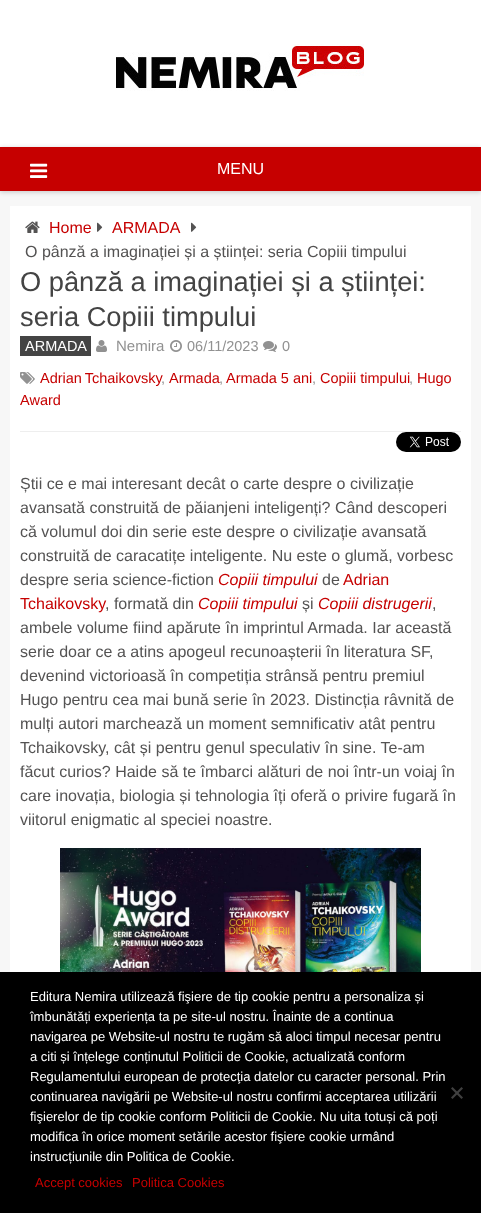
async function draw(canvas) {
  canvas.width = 481
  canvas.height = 1213
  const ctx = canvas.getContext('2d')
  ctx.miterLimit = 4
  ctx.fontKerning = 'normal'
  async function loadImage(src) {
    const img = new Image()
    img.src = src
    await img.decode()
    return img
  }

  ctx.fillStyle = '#f7f7f7'
  ctx.fillRect(0, 0, 481, 1213)
  ctx.fillStyle = '#fff'
  ctx.fillRect(0, 0, 481, 147)
  ctx.drawImage(await loadImage('image0.png'), 116, 44, 248, 47)
  ctx.fillStyle = '#00000033'
  ctx.filter = 'blur(2.5px)'
  ctx.beginPath()
  ctx.rect(0, 148, 481, 44)
  ctx.fill()
  ctx.filter = 'none'
  ctx.fillStyle = '#c60000'
  ctx.fillRect(0, 147, 481, 44)
  ctx.drawImage(await loadImage('image1.png'), 30, 163, 18, 15)
  ctx.font = '16px Liberation Sans'
  ctx.fillStyle = '#fff'
  ctx.fillText('MENU', 217, 174)
  ctx.fillStyle = '#c2c4c4'
  ctx.filter = 'blur(0.5px)'
  ctx.beginPath()
  ctx.rect(10, 207, 461, 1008)
  ctx.fill()
  ctx.filter = 'none'
  ctx.fillStyle = '#fff'
  ctx.fillRect(10, 206, 461, 766)
  ctx.drawImage(await loadImage('image2.png'), 25, 221, 15, 12)
  ctx.fillStyle = '#c60000'
  ctx.fillText('Home', 49, 233)
  ctx.drawImage(await loadImage('image3.png'), 97, 222, 6, 10)
  ctx.fillText('ARMADA', 112, 233)
  ctx.drawImage(await loadImage('image3.png'), 191, 222, 6, 10)
  ctx.fillStyle = '#545353'
  ctx.fillText('O pânză a imaginației și a științei: seria Copiii timpului', 25, 257)
  ctx.fillStyle = '#eee'
  ctx.fillRect(20, 431, 441, 1)
  ctx.font = '27.25px Liberation Sans'
  ctx.fillStyle = '#444'
  ctx.fillText('O pânză a imaginației și a științei:', 20, 291)
  ctx.fillText('seria Copiii timpului', 20, 326)
  ctx.fillRect(20, 336, 71, 20)
  ctx.font = '14.5px Liberation Sans'
  ctx.fillStyle = '#fff'
  ctx.fillText('ARMADA', 25, 351)
  ctx.drawImage(await loadImage('image4.png'), 96, 340, 11, 12)
  ctx.font = '15px Liberation Sans'
  ctx.fillStyle = '#919191'
  ctx.fillText('Nemira', 116, 351)
  ctx.drawImage(await loadImage('image5.png'), 170, 340, 12, 12)
  ctx.font = '14.5px Liberation Sans'
  ctx.fillText('06/11/2023', 187, 351)
  ctx.drawImage(await loadImage('image6.png'), 263, 341, 14, 11)
  ctx.fillText('0', 282, 351)
  ctx.drawImage(await loadImage('image7.png'), 20, 372, 15, 12)
  ctx.wordSpacing = '-1px'
  ctx.fillStyle = '#c60000'
  ctx.fillText('Adrian Tchaikovsky', 40, 383)
  ctx.wordSpacing = '0px'
  ctx.fillStyle = '#919191'
  ctx.fillText(',', 161, 383)
  ctx.fillStyle = '#c60000'
  ctx.fillText('Armada', 169, 383)
  ctx.fillStyle = '#919191'
  ctx.fillText(',', 219, 383)
  ctx.fillStyle = '#c60000'
  ctx.fillText('Armada 5 ani', 226, 383)
  ctx.fillStyle = '#919191'
  ctx.fillText(',', 312, 383)
  ctx.fillStyle = '#c60000'
  ctx.fillText('Copiii timpului', 320, 383)
  ctx.fillStyle = '#919191'
  ctx.fillText(',', 409, 383)
  ctx.fillStyle = '#c60000'
  ctx.fillText('Hugo', 417, 383)
  ctx.fillText('Award', 20, 405)
  ctx.drawImage(await loadImage('image8.png'), 396, 432, 65, 20)
  ctx.font = '16px Liberation Sans'
  ctx.fillStyle = '#545353'
  ctx.fillText('Știi ce e mai interesant decât o carte despre o civilizație', 20, 489)
  ctx.fillText('avansată construită de păianjeni inteligenți? Când descoperi', 20, 513)
  ctx.fillText('că volumul doi din serie este despre o civilizație avansată', 20, 537)
  ctx.fillText('construită de caracatițe inteligente. Nu este o glumă, vorbesc', 20, 561)
  ctx.fillText('despre seria science-fiction', 20, 585)
  ctx.font = 'italic 16px Liberation Sans'
  ctx.fillStyle = '#c60000'
  ctx.fillText('Copiii timpului', 218, 585)
  ctx.font = '16px Liberation Sans'
  ctx.fillStyle = '#545353'
  ctx.fillText('de', 322, 585)
  ctx.fillStyle = '#c60000'
  ctx.fillText('Adrian', 343, 585)
  ctx.fillText('Tchaikovsky', 20, 609)
  ctx.fillStyle = '#545353'
  ctx.fillText(', formată din', 105, 609)
  ctx.font = 'italic 16px Liberation Sans'
  ctx.fillStyle = '#c60000'
  ctx.fillText('Copiii timpului', 198, 609)
  ctx.font = '16px Liberation Sans'
  ctx.fillStyle = '#545353'
  ctx.fillText('și', 302, 609)
  ctx.font = 'italic 16px Liberation Sans'
  ctx.fillStyle = '#c60000'
  ctx.fillText('Copiii distrugerii', 318, 609)
  ctx.font = '16px Liberation Sans'
  ctx.fillStyle = '#545353'
  ctx.fillText(',', 432, 609)
  ctx.fillText('ambele volume fiind apărute în imprintul Armada. Iar această', 20, 633)
  ctx.fillText('serie doar ce a atins apogeul recunoașterii în literatura SF,', 20, 657)
  ctx.fillText('devenind victorioasă în competiția strânsă pentru premiul', 20, 681)
  ctx.fillText('Hugo pentru cea mai bună serie în 2023. Distincția râvnită de', 20, 705)
  ctx.fillText('mulți autori marchează un moment semnificativ atât pentru', 20, 729)
  ctx.fillText('Tchaikovsky, cât și pentru genul speculativ în sine. Te-am', 20, 753)
  ctx.fillText('făcut curios? Haide să te îmbarci alături de noi într-un voiaj în', 20, 777)
  ctx.fillText('care inovația, biologia și tehnologia îți oferă o privire fugară în', 20, 801)
  ctx.fillText('viitorul enigmatic al speciei noastre.', 20, 825)
  ctx.drawImage(await loadImage('image9.png'), 60, 848, 361, 124)
  ctx.fillStyle = '#000'
  ctx.fillRect(0, 972, 481, 241)
  ctx.font = '13px Liberation Sans'
  ctx.fillStyle = '#fff'
  ctx.fillText('Editura Nemira utilizează fişiere de tip cookie pentru a personaliza și', 30, 1001)
  ctx.fillText('îmbunătăți experiența ta pe site-ul nostru. Înainte de a continua', 30, 1021)
  ctx.fillText('navigarea pe Website-ul nostru te rugăm să aloci timpul necesar pentru', 30, 1041)
  ctx.fillText('a citi și înțelege conținutul Politicii de Cookie, actualizată conform', 30, 1061)
  ctx.fillText('Regulamentului european de protecţia datelor cu caracter personal. Prin', 30, 1081)
  ctx.fillText('continuarea navigării pe Website-ul nostru confirmi acceptarea utilizării', 30, 1101)
  ctx.fillText('fişierelor de tip cookie conform Politicii de Cookie. Nu uita totuși că poți', 30, 1121)
  ctx.fillText('modifica în orice moment setările acestor fişiere cookie urmând', 30, 1141)
  ctx.fillText('instrucțiunile din Politica de Cookie.', 30, 1161)
  ctx.fillStyle = '#404040'
  ctx.beginPath()
  ctx.moveTo(461.5, 1087)
  ctx.lineTo(463, 1088.5)
  ctx.lineTo(452.5, 1099)
  ctx.lineTo(451, 1097.5)
  ctx.closePath()
  ctx.fill()
  ctx.beginPath()
  ctx.moveTo(451, 1088.5)
  ctx.lineTo(452.5, 1087)
  ctx.lineTo(463, 1097.5)
  ctx.lineTo(461.5, 1099)
  ctx.closePath()
  ctx.fill()
  ctx.fillStyle = '#c60000'
  ctx.fillText('Accept cookies', 35, 1187)
  ctx.fillText('Politica Cookies', 132, 1187)
}

draw(document.querySelector('canvas'))
